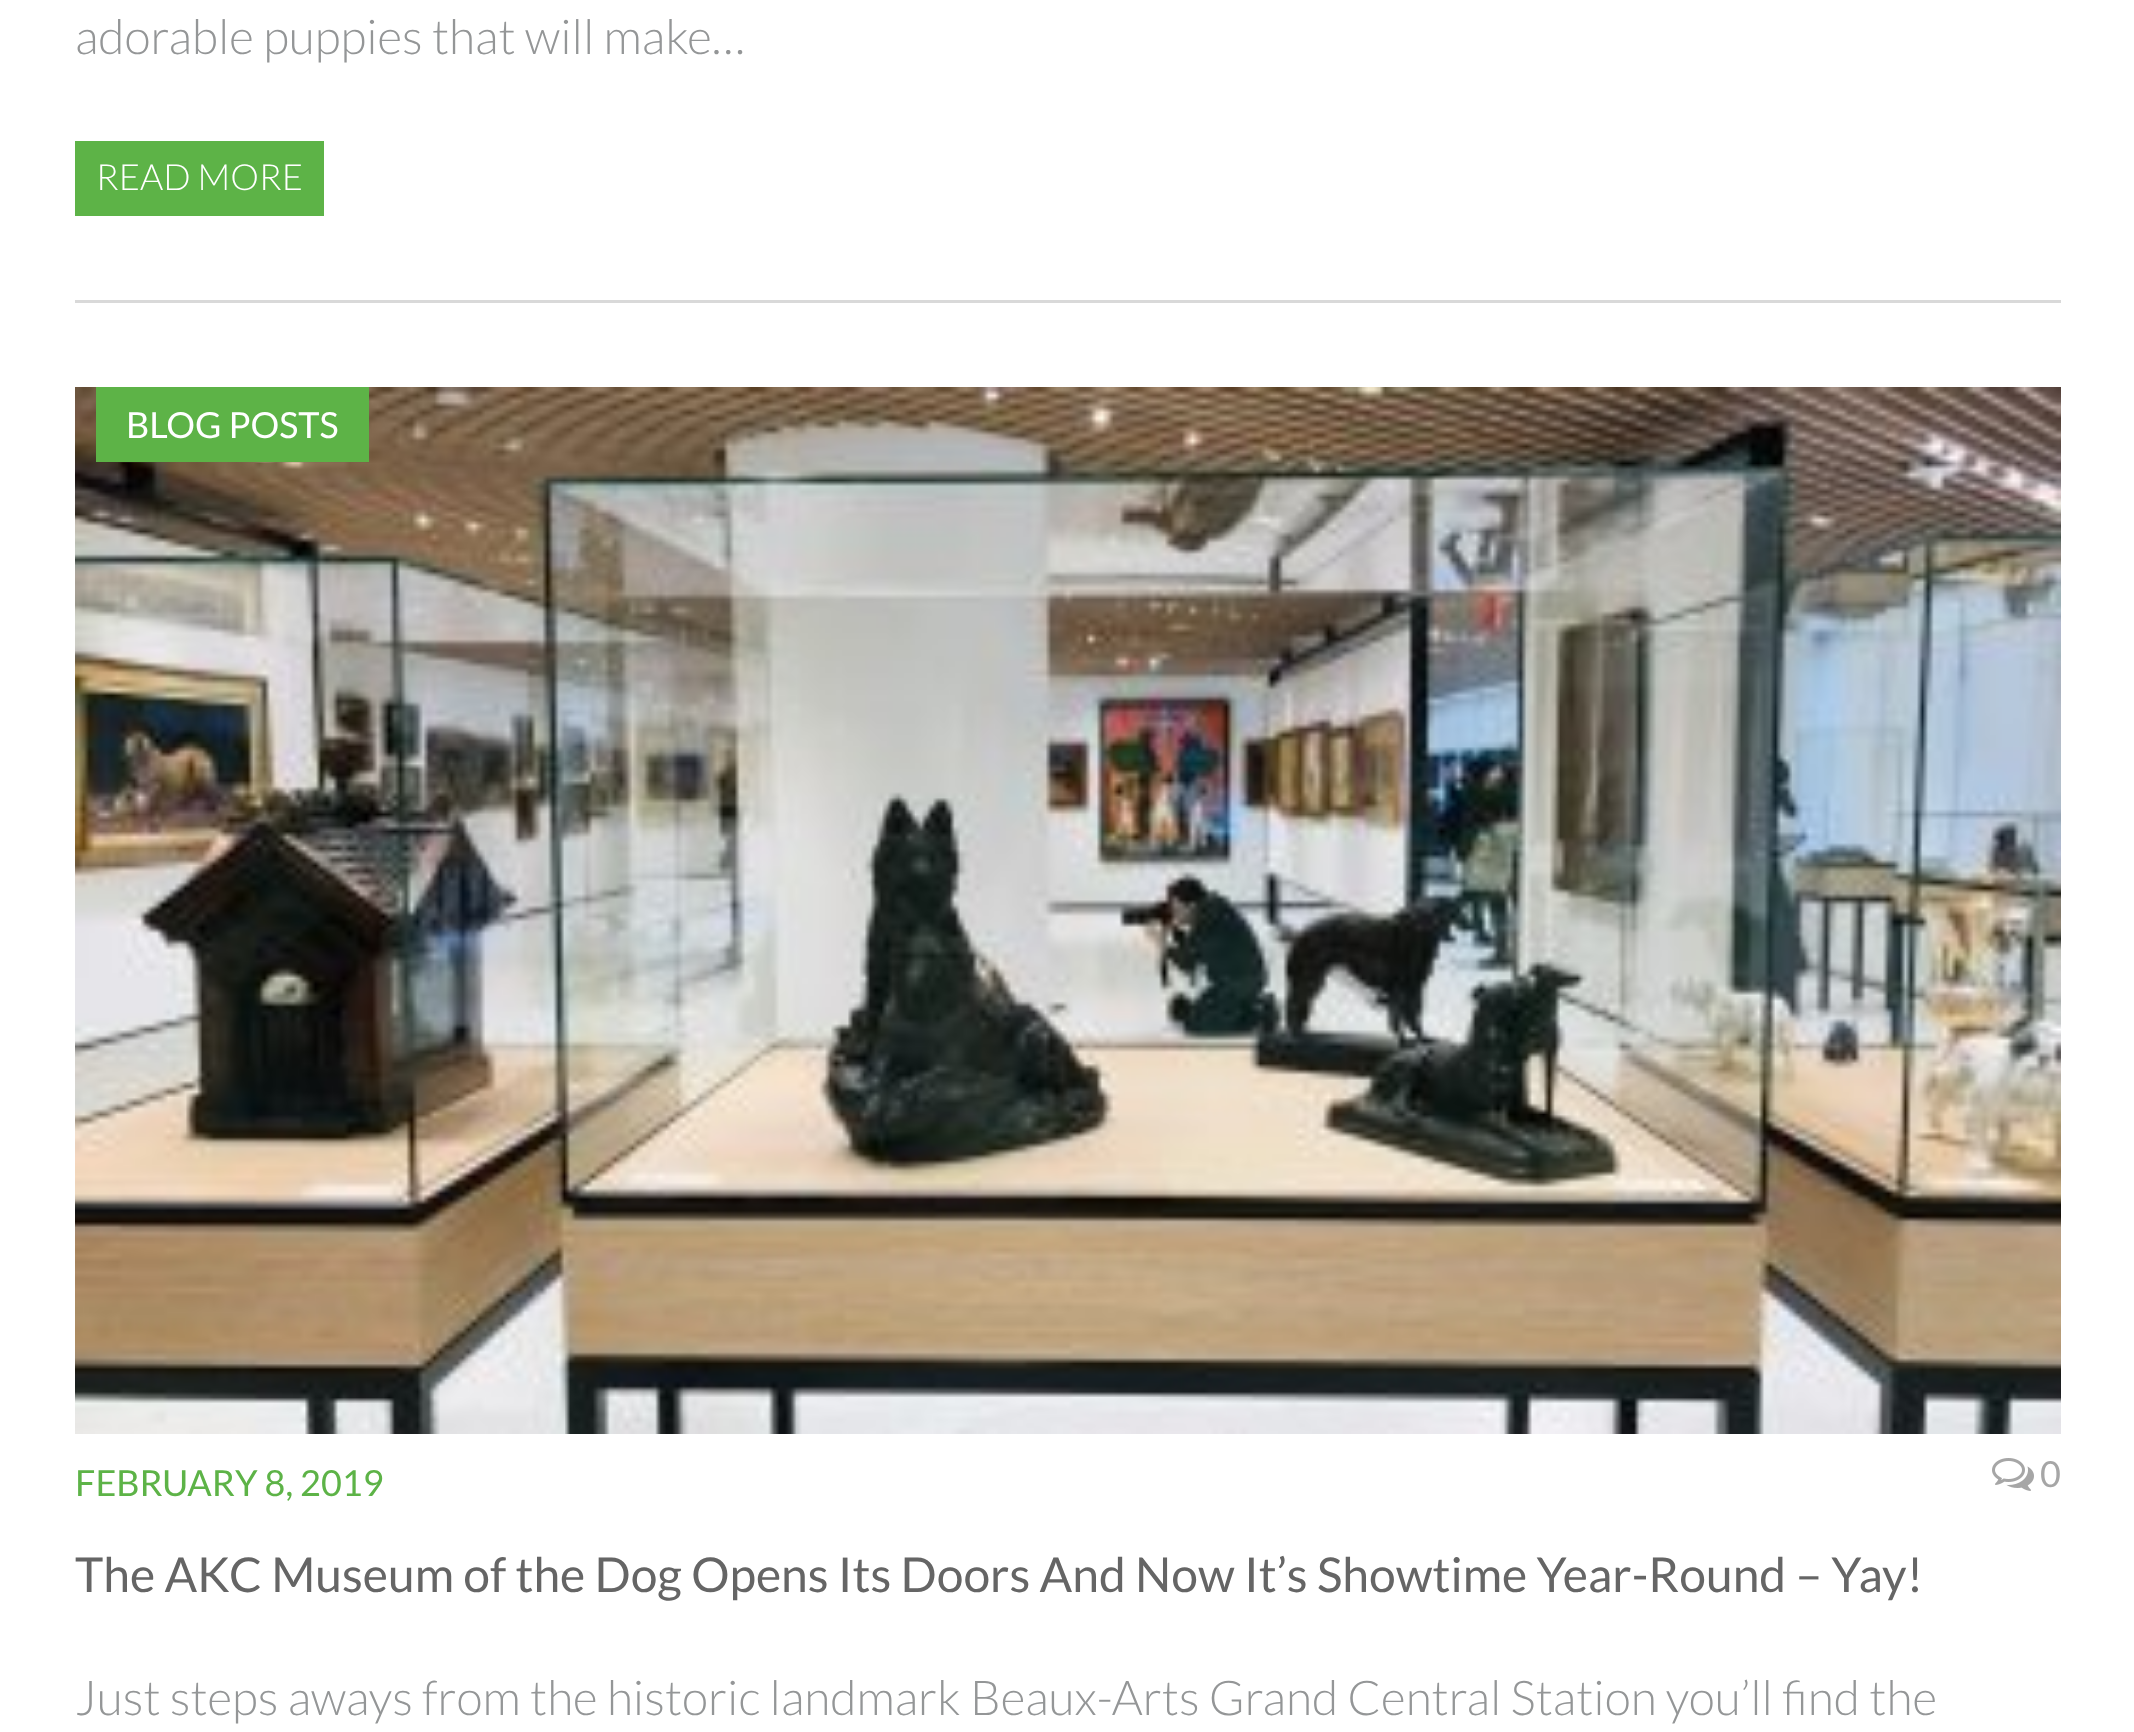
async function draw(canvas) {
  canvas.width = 2134
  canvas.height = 1732
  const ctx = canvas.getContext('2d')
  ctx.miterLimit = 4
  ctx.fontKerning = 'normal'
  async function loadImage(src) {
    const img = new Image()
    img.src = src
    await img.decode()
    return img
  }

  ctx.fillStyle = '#fff'
  ctx.fillRect(0, 0, 2134, 1732)
  ctx.font = '300 48px Lato'
  ctx.fillStyle = '#949697'
  ctx.fillText('adorable puppies that will make…', 75, 54)
  ctx.fillStyle = '#5db347'
  ctx.fillRect(75, 141, 249, 75)
  ctx.font = '300 36px Lato'
  ctx.fillStyle = '#fff'
  ctx.fillText('READ MORE', 96, 190)
  ctx.fillStyle = '#d9d9d9'
  ctx.fillRect(75, 300, 1986, 3)
  ctx.drawImage(await loadImage('image0.png'), 75, 387, 1986, 1047)
  ctx.fillStyle = '#5db347'
  ctx.fillRect(96, 387, 273, 75)
  ctx.font = '36px Lato'
  ctx.fillStyle = '#fff'
  ctx.fillText('BLOG POSTS', 126, 438)
  ctx.fillStyle = '#5db347'
  ctx.fillText('FEBRUARY 8, 2019', 75, 1496)
  ctx.drawImage(await loadImage('image1.png'), 1992, 1458, 42, 33)
  ctx.fillStyle = '#a6a6a6'
  ctx.fillText('0', 2040, 1487)
  ctx.font = '48px Lato'
  ctx.fillStyle = '#656565'
  ctx.fillText('The AKC Museum of the Dog Opens Its Doors And Now It’s Showtime Year-Round – Yay!', 75, 1592)
  ctx.font = '300 48px Lato'
  ctx.fillStyle = '#949697'
  ctx.fillText('Just steps aways from the historic landmark Beaux-Arts Grand Central Station you’ll find the', 75, 1715)
}

draw(document.querySelector('canvas'))
